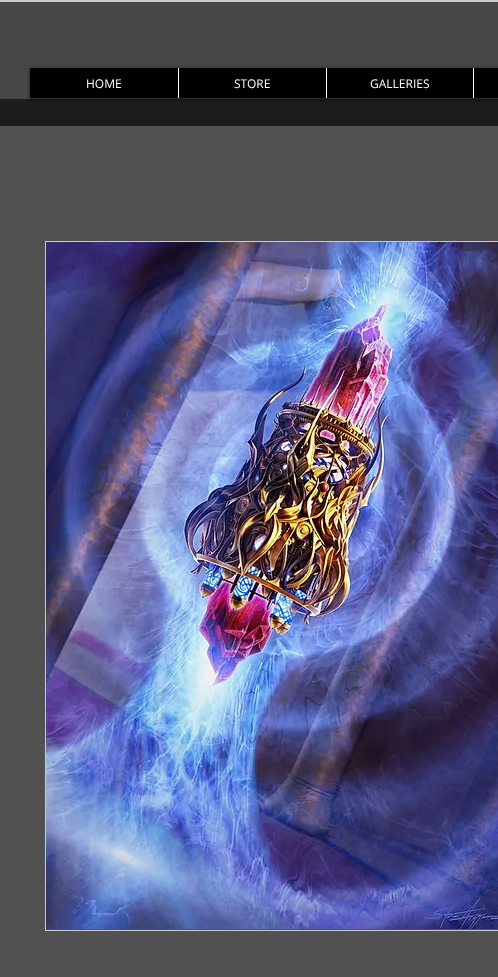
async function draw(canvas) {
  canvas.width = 498
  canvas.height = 977
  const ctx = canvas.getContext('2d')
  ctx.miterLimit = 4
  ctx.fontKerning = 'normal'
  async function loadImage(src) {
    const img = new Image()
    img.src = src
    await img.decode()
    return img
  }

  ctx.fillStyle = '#cacaca'
  ctx.fillRect(0, 0, 498, 977)
  ctx.fillStyle = '#474747'
  ctx.fillRect(0, 2, 498, 124)
  ctx.fillStyle = '#00000099'
  ctx.filter = 'blur(2px)'
  ctx.beginPath()
  ctx.rect(30, 69, 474, 30)
  ctx.fill()
  ctx.filter = 'none'
  ctx.fillStyle = '#000'
  ctx.fillRect(30, 68, 468, 30)
  ctx.font = '12px Open Sans'
  ctx.fillStyle = '#fff'
  ctx.fillText('HOME', 86, 88)
  ctx.fillRect(178, 68, 1, 30)
  ctx.fillText('STORE', 234, 88)
  ctx.fillRect(326, 68, 1, 30)
  ctx.fillText('GALLERIES', 370, 88)
  ctx.fillRect(473, 68, 1, 30)
  ctx.fillStyle = '#00000099'
  ctx.fillRect(0, 99, 498, 878)
  ctx.strokeStyle = '#cacaca'
  ctx.strokeRect(45.5, 241.5, 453, 689)
  ctx.drawImage(await loadImage('image0.png'), 46, 242, 452, 687)
}

draw(document.querySelector('canvas'))
